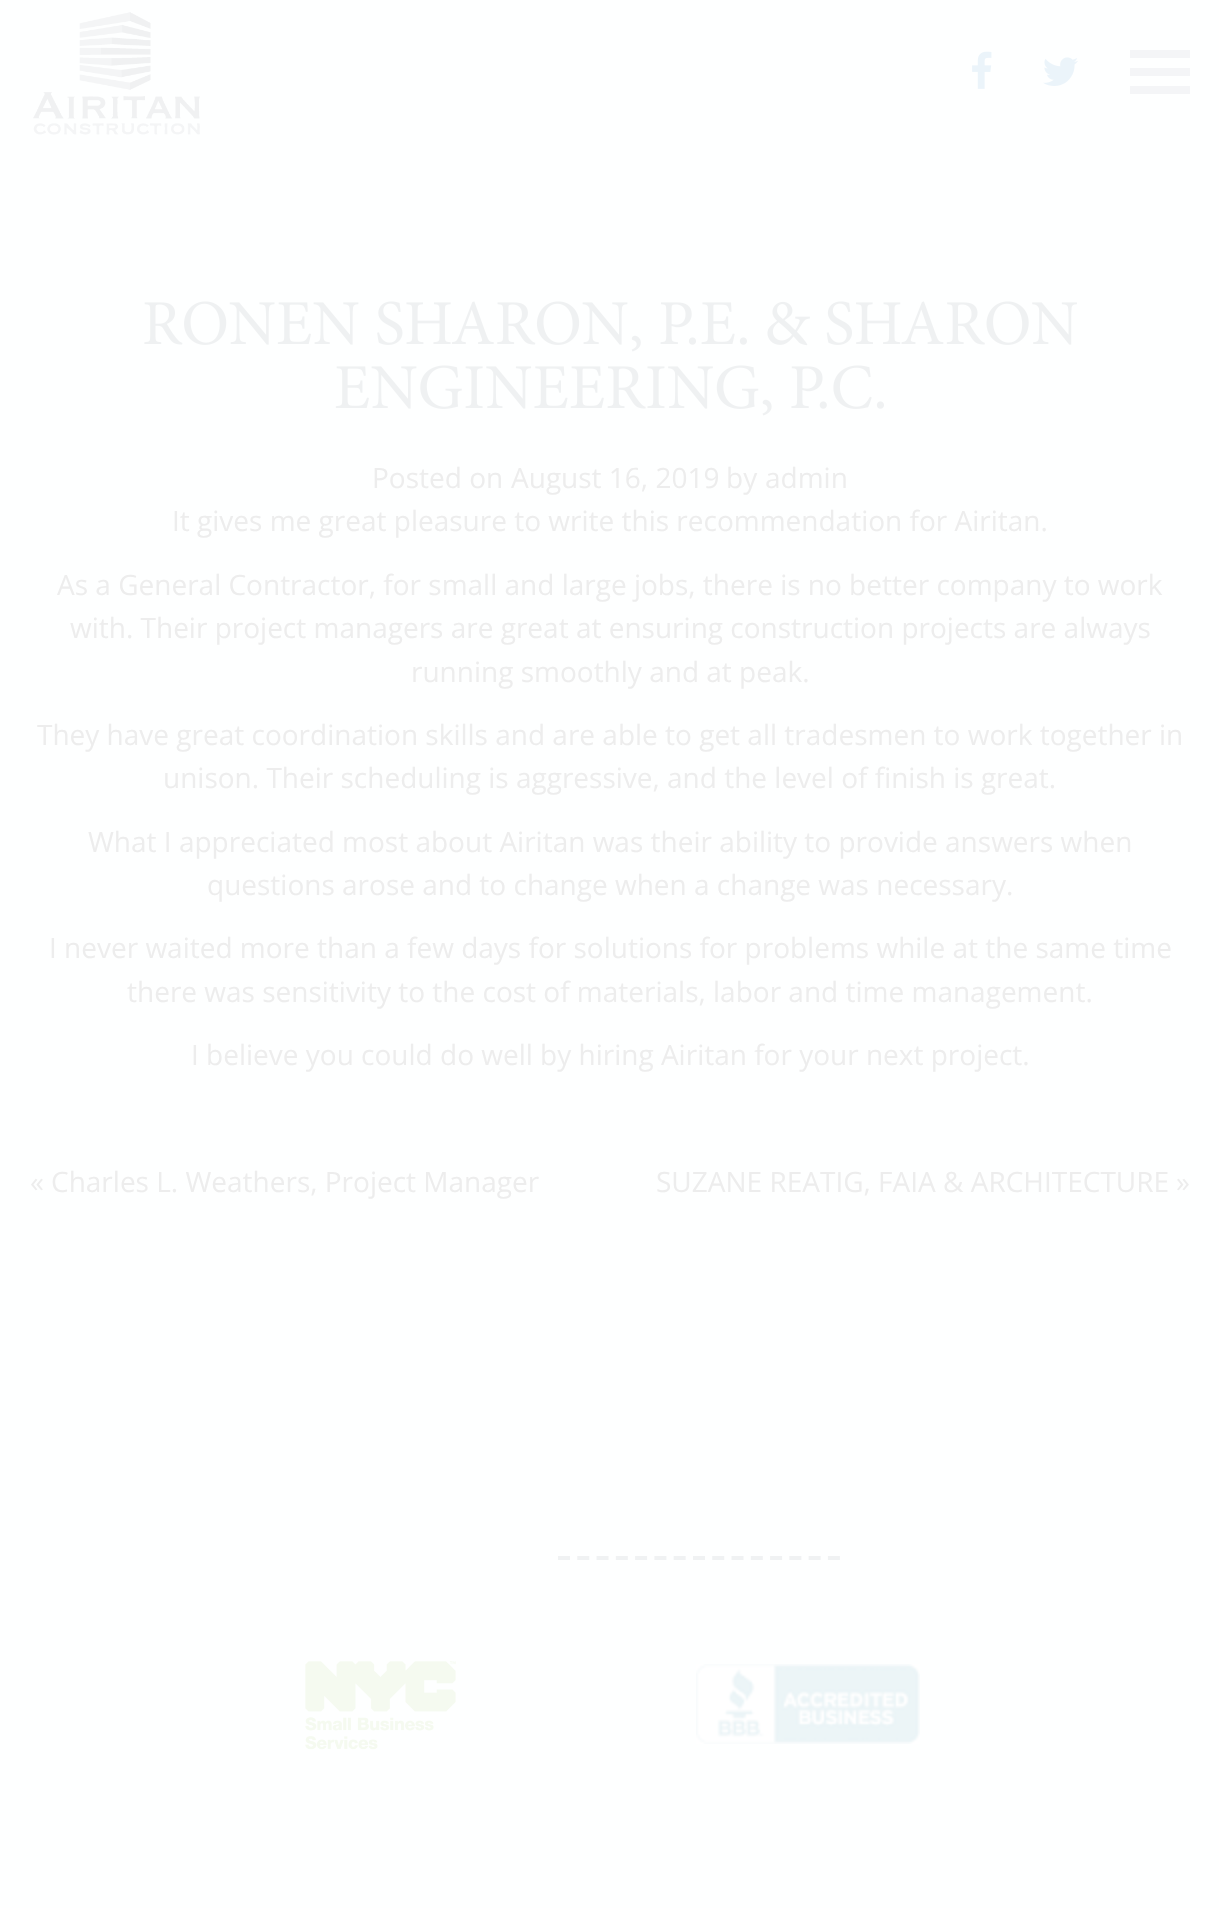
async function draw(canvas) {
  canvas.width = 1219
  canvas.height = 1908
  const ctx = canvas.getContext('2d')
  ctx.miterLimit = 4
  ctx.fontKerning = 'normal'
  async function loadImage(src) {
    const img = new Image()
    img.src = src
    await img.decode()
    return img
  }

  ctx.fillStyle = '#feffff'
  ctx.fillRect(0, 0, 1219, 1908)
  ctx.drawImage(await loadImage('image0.png'), 33, 12, 167, 123)
  ctx.drawImage(await loadImage('image1.png'), 972, 51, 20, 38)
  ctx.drawImage(await loadImage('image2.png'), 1043, 57, 35, 29)
  ctx.fillStyle = '#f4f5f7'
  ctx.fillRect(1130, 50, 60, 8)
  ctx.fillRect(1130, 68, 60, 8)
  ctx.fillRect(1130, 86, 60, 8)
  ctx.drawImage(await loadImage('image3.png'), 144, 301, 603, 51)
  ctx.drawImage(await loadImage('image4.png'), 767, 301, 310, 45)
  ctx.drawImage(await loadImage('image5.png'), 335, 365, 549, 51)
  ctx.font = '28px Open Sans'
  ctx.fillStyle = '#ededed'
  ctx.fillText('Posted on', 372, 488)
  ctx.fillText('August 16, 2019', 511, 488)
  ctx.fillText('by', 726, 488)
  ctx.fillText('admin', 765, 488)
  ctx.fillText('It gives me great pleasure to write this recommendation for Airitan.', 172, 531)
  ctx.fillText('As a General Contractor, for small and large jobs, there is no better company to work', 57, 595)
  ctx.fillText('with. Their project managers are great at ensuring construction projects are always', 70, 638)
  ctx.fillText('running smoothly and at peak.', 411, 682)
  ctx.fillText('They have great coordination skills and are able to get all tradesmen to work together in', 37, 745)
  ctx.fillText('unison. Their scheduling is aggressive, and the level of finish is great.', 163, 788)
  ctx.fillText('What I appreciated most about Airitan was their ability to provide answers when', 88, 852)
  ctx.fillText('questions arose and to change when a change was necessary.', 207, 895)
  ctx.fillText('I never waited more than a few days for solutions for problems while at the same time', 49, 958)
  ctx.fillText('there was sensitivity to the cost of materials, labor and time management.', 127, 1002)
  ctx.fillText('I believe you could do well by hiring Airitan for your next project.', 191, 1065)
  ctx.fillText('«', 30, 1192)
  ctx.fillText('Charles L. Weathers, Project Manager', 51, 1192)
  ctx.fillText('SUZANE REATIG, FAIA & ARCHITECTURE', 656, 1192)
  ctx.fillText('»', 1176, 1192)
  ctx.beginPath()
  ctx.moveTo(558, 1558)
  ctx.lineTo(840, 1558)
  ctx.strokeStyle = '#f0f2f3'
  ctx.lineWidth = 4
  ctx.setLineDash([12, 7.28])
  ctx.stroke()
  ctx.drawImage(await loadImage('image6.png'), 305, 1661, 151, 89)
  ctx.drawImage(await loadImage('image7.png'), 696, 1664, 224, 80)
}

draw(document.querySelector('canvas'))
